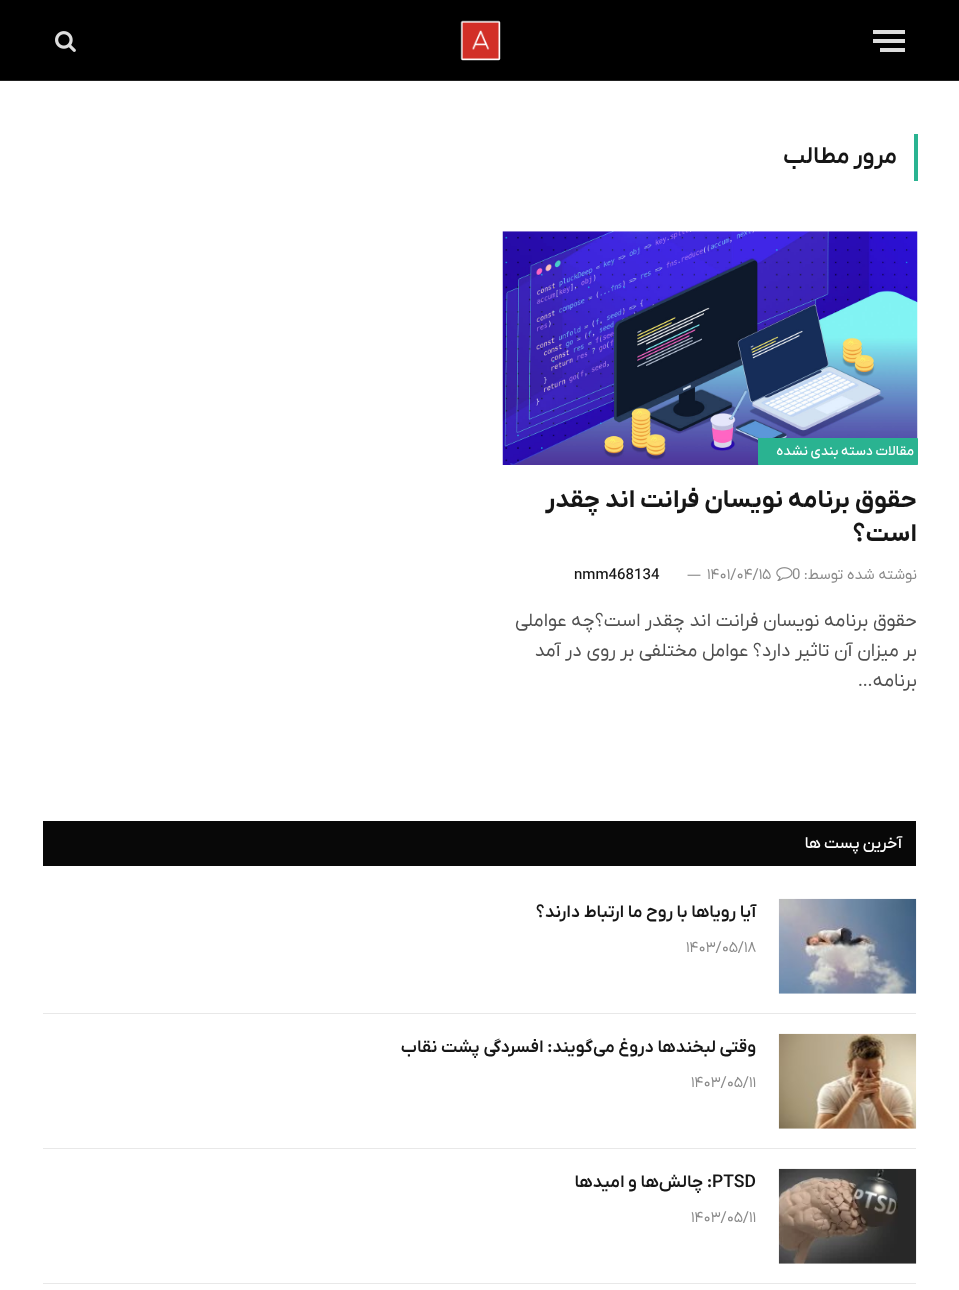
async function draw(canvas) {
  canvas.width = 959
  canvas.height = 1290
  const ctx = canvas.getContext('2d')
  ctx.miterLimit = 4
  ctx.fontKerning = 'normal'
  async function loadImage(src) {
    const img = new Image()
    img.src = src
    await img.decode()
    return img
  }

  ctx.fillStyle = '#fff'
  ctx.fillRect(0, 0, 959, 1290)
  ctx.fillStyle = '#000'
  ctx.fillRect(0, 0, 959, 80)
  ctx.fillStyle = '#222'
  ctx.fillRect(0, 80, 959, 1)
  ctx.fillStyle = '#ddd'
  ctx.fillRect(880, 48, 25, 4)
  ctx.fillRect(873, 30, 32, 4)
  ctx.fillRect(873, 39, 32, 4)
  ctx.drawImage(await loadImage('image0.png'), 460, 20, 41, 41)
  ctx.drawImage(await loadImage('image1.png'), 55, 31, 21, 21)
  ctx.fillStyle = '#2ab391'
  ctx.fillRect(914, 134, 4, 47)
  ctx.letterSpacing = '0.25px'
  ctx.wordSpacing = '-1px'
  ctx.direction = 'rtl'
  ctx.font = '600 23.75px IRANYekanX'
  ctx.fillStyle = '#161616'
  ctx.fillText('مرور مطالب', 897, 163)
  ctx.drawImage(await loadImage('image2.png'), 502, 231, 416, 234)
  ctx.fillStyle = '#2ab391'
  ctx.beginPath()
  ctx.roundRect(758, 438, 160, 27, 1)
  ctx.fill()
  ctx.letterSpacing = '0.4px'
  ctx.font = '500 13.75px IRANYekanX'
  ctx.fillStyle = '#fff'
  ctx.fillText('مقالات دسته بندی نشده', 914, 455)
  ctx.letterSpacing = '0px'
  ctx.wordSpacing = '0px'
  ctx.font = 'bold 25px IRANYekanX'
  ctx.fillStyle = '#161616'
  ctx.fillText('حقوق برنامه نویسان فرانت اند چقدر', 917, 507)
  ctx.fillText('است؟', 917, 541)
  ctx.font = '15px IRANYekanX'
  ctx.fillStyle = '#8a8a8a'
  ctx.fillText('نوشته شده توسط:', 917, 579)
  ctx.drawImage(await loadImage('image3.png'), 776, 567, 17, 14)
  ctx.direction = 'ltr'
  ctx.fillText('0', 792, 579)
  ctx.fillText('۱۴۰۱/۰۴/۱۵', 707, 579)
  ctx.font = '14px Noto Sans'
  ctx.fillText('—', 687, 579)
  ctx.font = '500 15px IRANYekanX'
  ctx.fillStyle = '#161616'
  ctx.fillText('nmm468134', 574, 579)
  ctx.direction = 'rtl'
  ctx.font = '18.75px IRANYekanX'
  ctx.fillStyle = '#505050'
  ctx.fillText('حقوق برنامه نویسان فرانت اند چقدر است؟چه عواملی', 917, 626)
  ctx.fillText('بر میزان آن تاثیر دارد؟ عوامل مختلفی بر روی در آمد', 917, 656)
  ctx.fillText('برنامه…', 917, 686)
  ctx.fillStyle = '#080808'
  ctx.fillRect(43, 821, 873, 45)
  ctx.letterSpacing = '0.25px'
  ctx.wordSpacing = '-1px'
  ctx.font = '500 16.25px IRANYekanX'
  ctx.fillStyle = '#fff'
  ctx.fillText('آخرین پست ها', 902, 848)
  ctx.drawImage(await loadImage('image4.png'), 778, 898, 139, 96)
  ctx.letterSpacing = '0px'
  ctx.wordSpacing = '0px'
  ctx.font = '600 17.5px IRANYekanX'
  ctx.fillStyle = '#161616'
  ctx.fillText('آیا رویاها با روح ما ارتباط دارند؟', 756, 917)
  ctx.direction = 'ltr'
  ctx.font = '15px IRANYekanX'
  ctx.fillStyle = '#8a8a8a'
  ctx.fillText('۱۴۰۳/۰۵/۱۸', 686, 952)
  ctx.fillStyle = '#e8e8e8'
  ctx.fillRect(43, 1013, 873, 1)
  ctx.drawImage(await loadImage('image5.png'), 778, 1033, 139, 96)
  ctx.direction = 'rtl'
  ctx.font = '600 17.5px IRANYekanX'
  ctx.fillStyle = '#161616'
  ctx.fillText('وقتی لبخندها دروغ می‌گویند: افسردگی پشت نقاب', 756, 1052)
  ctx.direction = 'ltr'
  ctx.font = '15px IRANYekanX'
  ctx.fillStyle = '#8a8a8a'
  ctx.fillText('۱۴۰۳/۰۵/۱۱', 691, 1087)
  ctx.fillStyle = '#e8e8e8'
  ctx.fillRect(43, 1148, 873, 1)
  ctx.drawImage(await loadImage('image6.png'), 778, 1168, 139, 96)
  ctx.font = '600 17.5px IRANYekanX'
  ctx.fillStyle = '#161616'
  ctx.fillText('PTSD', 712, 1187)
  ctx.direction = 'rtl'
  ctx.fillText(': چالش‌ها و امیدها', 712, 1187)
  ctx.direction = 'ltr'
  ctx.font = '15px IRANYekanX'
  ctx.fillStyle = '#8a8a8a'
  ctx.fillText('۱۴۰۳/۰۵/۱۱', 691, 1222)
  ctx.fillStyle = '#e8e8e8'
  ctx.fillRect(43, 1283, 873, 1)
}

draw(document.querySelector('canvas'))
